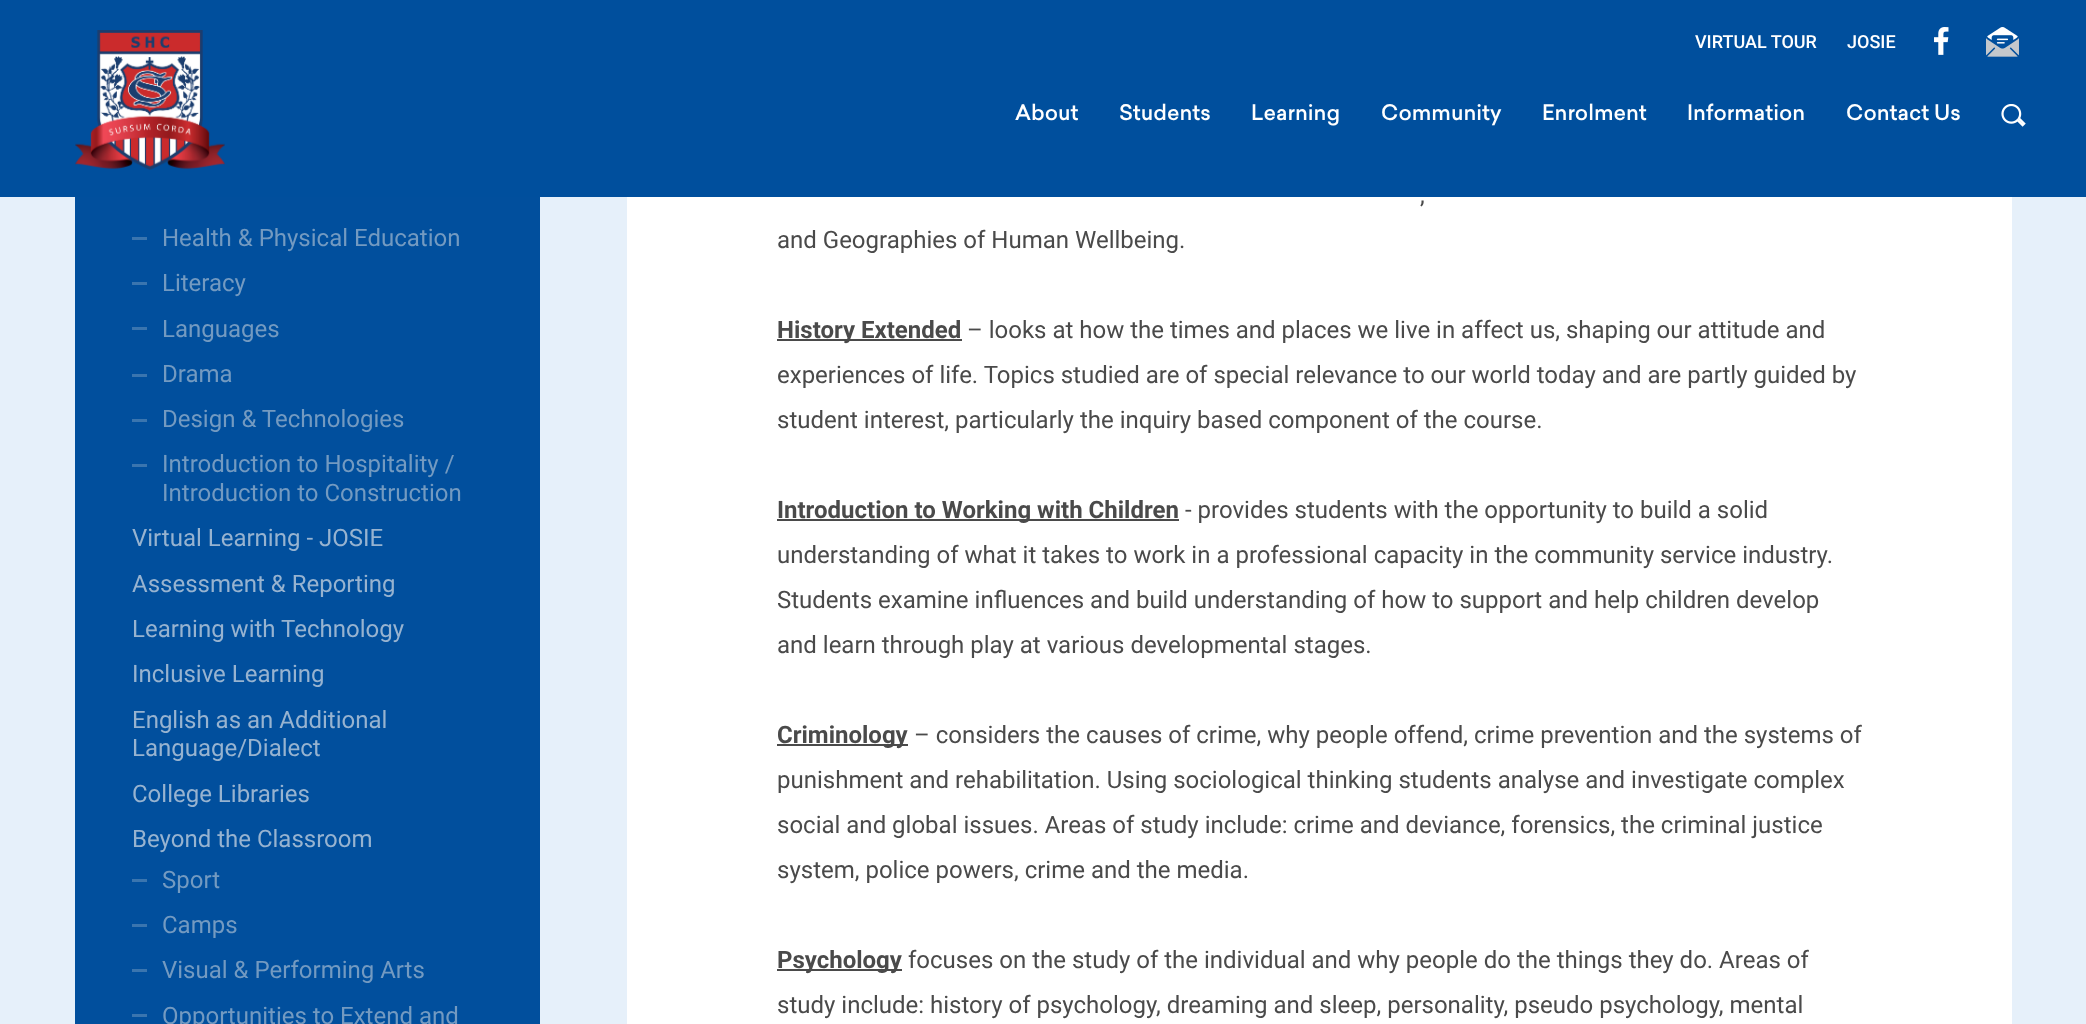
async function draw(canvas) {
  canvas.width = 2086
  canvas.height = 1024
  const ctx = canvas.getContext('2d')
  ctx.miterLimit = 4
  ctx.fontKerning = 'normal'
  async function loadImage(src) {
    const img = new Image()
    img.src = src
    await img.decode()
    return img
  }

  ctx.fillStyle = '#e6f0fa'
  ctx.fillRect(0, 0, 2086, 1024)
  ctx.fillStyle = '#004f9d'
  ctx.fillRect(0, 0, 2086, 197)
  ctx.drawImage(await loadImage('image0.png'), 75, 30, 150, 140)
  ctx.font = '500 18px Roboto'
  ctx.fillStyle = '#fff'
  ctx.fillText('VIRTUAL TOUR', 1695, 48)
  ctx.fillText('JOSIE', 1847, 48)
  ctx.drawImage(await loadImage('image1.png'), 1934, 27, 15, 28)
  ctx.drawImage(await loadImage('image2.png'), 1986, 27, 33, 30)
  ctx.font = '500 21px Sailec'
  ctx.fillText('About', 1015, 120)
  ctx.fillText('Students', 1119, 120)
  ctx.fillText('Learning', 1251, 120)
  ctx.fillText('Community', 1381, 120)
  ctx.fillText('Enrolment', 1542, 120)
  ctx.fillText('Information', 1687, 120)
  ctx.fillText('Contact Us', 1846, 120)
  ctx.drawImage(await loadImage('image3.png'), 2001, 104, 25, 23)
  ctx.fillStyle = '#014f9d'
  ctx.fillRect(75, 197, 465, 827)
  ctx.fillStyle = '#3a75af'
  ctx.fillRect(132, 237, 15, 3)
  ctx.font = '24px Roboto'
  ctx.fillStyle = '#739ac1'
  ctx.fillText('Health & Physical Education', 162, 246)
  ctx.fillStyle = '#3a75af'
  ctx.fillRect(132, 282, 15, 3)
  ctx.fillStyle = '#739ac1'
  ctx.fillText('Literacy', 162, 291)
  ctx.fillStyle = '#3a75af'
  ctx.fillRect(132, 327, 15, 3)
  ctx.fillStyle = '#739ac1'
  ctx.fillText('Languages', 162, 337)
  ctx.fillStyle = '#3a75af'
  ctx.fillRect(132, 374, 15, 3)
  ctx.fillStyle = '#739ac1'
  ctx.fillText('Drama', 162, 382)
  ctx.fillStyle = '#3a75af'
  ctx.fillRect(132, 419, 15, 3)
  ctx.fillStyle = '#739ac1'
  ctx.fillText('Design & Technologies', 162, 427)
  ctx.fillStyle = '#3a75af'
  ctx.fillRect(132, 464, 15, 3)
  ctx.fillStyle = '#739ac1'
  ctx.fillText('Introduction to Hospitality /', 162, 472)
  ctx.fillText('Introduction to Construction', 162, 501)
  ctx.fillStyle = '#97b3d0'
  ctx.fillText('Virtual Learning - JOSIE', 132, 546)
  ctx.fillText('Assessment & Reporting', 132, 592)
  ctx.fillText('Learning with Technology', 132, 637)
  ctx.fillText('Inclusive Learning', 132, 682)
  ctx.fillText('English as an Additional', 132, 728)
  ctx.fillText('Language/Dialect', 132, 756)
  ctx.fillText('College Libraries', 132, 802)
  ctx.fillText('Beyond the Classroom', 132, 847)
  ctx.fillStyle = '#3a75af'
  ctx.fillRect(132, 879, 15, 3)
  ctx.fillStyle = '#739ac1'
  ctx.fillText('Sport', 162, 888)
  ctx.fillStyle = '#3a75af'
  ctx.fillRect(132, 924, 15, 3)
  ctx.fillStyle = '#739ac1'
  ctx.fillText('Camps', 162, 933)
  ctx.fillStyle = '#3a75af'
  ctx.fillRect(132, 969, 15, 3)
  ctx.fillStyle = '#739ac1'
  ctx.fillText('Visual & Performing Arts', 162, 978)
  ctx.fillStyle = '#3a75af'
  ctx.fillRect(132, 1014, 15, 3)
  ctx.fillStyle = '#739ac1'
  ctx.fillText('Opportunities to Extend and', 162, 1024)
  ctx.fillStyle = '#fff'
  ctx.fillRect(627, 197, 1385, 827)
  ctx.fillStyle = '#4a4a4a'
  ctx.fillText(',', 1420, 203)
  ctx.fillText('and Geographies of Human Wellbeing.', 777, 248)
  ctx.fillRect(777, 339, 185, 2)
  ctx.font = 'bold 24px Roboto'
  ctx.fillText('History Extended', 777, 338)
  ctx.font = '24px Roboto'
  ctx.fillText('– looks at how the times and places we live in affect us, shaping our attitude and', 967, 338)
  ctx.fillText('experiences of life. Topics studied are of special relevance to our world today and are partly guided by', 777, 383)
  ctx.fillText('student interest, particularly the inquiry based component of the course.', 777, 428)
  ctx.fillRect(777, 519, 402, 2)
  ctx.font = 'bold 24px Roboto'
  ctx.fillText('Introduction to Working with Children', 777, 518)
  ctx.font = '24px Roboto'
  ctx.fillText('- provides students with the opportunity to build a solid', 1185, 518)
  ctx.fillText('understanding of what it takes to work in a professional capacity in the community service industry.', 777, 563)
  ctx.fillText('Students examine influences and build understanding of how to support and help children develop', 777, 608)
  ctx.fillText('and learn through play at various developmental stages.', 777, 653)
  ctx.fillRect(777, 744, 131, 2)
  ctx.font = 'bold 24px Roboto'
  ctx.fillText('Criminology', 777, 743)
  ctx.font = '24px Roboto'
  ctx.fillText('– considers the causes of crime, why people offend, crime prevention and the systems of', 914, 743)
  ctx.fillText('punishment and rehabilitation. Using sociological thinking students analyse and investigate complex', 777, 788)
  ctx.fillText('social and global issues. Areas of study include: crime and deviance, forensics, the criminal justice', 777, 833)
  ctx.fillText('system, police powers, crime and the media.', 777, 878)
  ctx.fillRect(777, 969, 125, 2)
  ctx.font = 'bold 24px Roboto'
  ctx.fillText('Psychology', 777, 968)
  ctx.font = '24px Roboto'
  ctx.fillText('focuses on the study of the individual and why people do the things they do. Areas of', 908, 968)
  ctx.fillText('study include: history of psychology, dreaming and sleep, personality, pseudo psychology, mental', 777, 1013)
}

draw(document.querySelector('canvas'))
